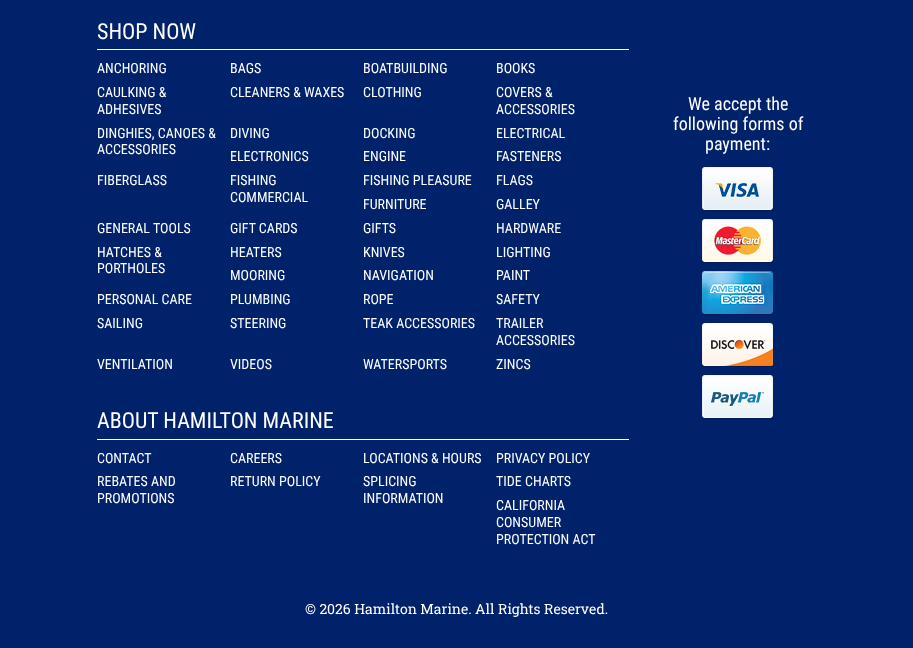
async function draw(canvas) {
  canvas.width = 913
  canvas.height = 648
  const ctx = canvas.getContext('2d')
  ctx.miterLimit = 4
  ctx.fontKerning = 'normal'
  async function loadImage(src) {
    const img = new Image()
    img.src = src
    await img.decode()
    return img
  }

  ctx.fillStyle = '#00226b'
  ctx.fillRect(0, 0, 913, 648)
  ctx.fillStyle = '#fff'
  ctx.fillRect(97, 49, 532, 1)
  ctx.font = '22px Roboto Condensed'
  ctx.fillText('SHOP NOW', 97, 39)
  ctx.font = '14px Roboto Condensed'
  ctx.fillText('ANCHORING', 97, 73)
  ctx.fillText('BAGS', 230, 73)
  ctx.fillText('BOATBUILDING', 363, 73)
  ctx.fillText('BOOKS', 496, 73)
  ctx.fillText('CAULKING &', 97, 97)
  ctx.fillText('ADHESIVES', 97, 114)
  ctx.fillText('CLEANERS & WAXES', 230, 97)
  ctx.fillText('CLOTHING', 363, 97)
  ctx.fillText('COVERS &', 496, 97)
  ctx.fillText('ACCESSORIES', 496, 114)
  ctx.fillText('DINGHIES, CANOES &', 97, 138)
  ctx.fillText('ACCESSORIES', 97, 154)
  ctx.fillText('DIVING', 230, 138)
  ctx.fillText('DOCKING', 363, 138)
  ctx.fillText('ELECTRICAL', 496, 138)
  ctx.fillText('ELECTRONICS', 230, 161)
  ctx.fillText('ENGINE', 363, 161)
  ctx.fillText('FASTENERS', 496, 161)
  ctx.fillText('FIBERGLASS', 97, 185)
  ctx.fillText('FISHING', 230, 185)
  ctx.fillText('COMMERCIAL', 230, 202)
  ctx.fillText('FISHING PLEASURE', 363, 185)
  ctx.fillText('FLAGS', 496, 185)
  ctx.fillText('FURNITURE', 363, 209)
  ctx.fillText('GALLEY', 496, 209)
  ctx.fillText('GENERAL TOOLS', 97, 233)
  ctx.fillText('GIFT CARDS', 230, 233)
  ctx.fillText('GIFTS', 363, 233)
  ctx.fillText('HARDWARE', 496, 233)
  ctx.fillText('HATCHES &', 97, 257)
  ctx.fillText('PORTHOLES', 97, 273)
  ctx.fillText('HEATERS', 230, 257)
  ctx.fillText('KNIVES', 363, 257)
  ctx.fillText('LIGHTING', 496, 257)
  ctx.fillText('MOORING', 230, 280)
  ctx.fillText('NAVIGATION', 363, 280)
  ctx.fillText('PAINT', 496, 280)
  ctx.fillText('PERSONAL CARE', 97, 304)
  ctx.fillText('PLUMBING', 230, 304)
  ctx.fillText('ROPE', 363, 304)
  ctx.fillText('SAFETY', 496, 304)
  ctx.fillText('SAILING', 97, 328)
  ctx.fillText('STEERING', 230, 328)
  ctx.fillText('TEAK ACCESSORIES', 363, 328)
  ctx.fillText('TRAILER', 496, 328)
  ctx.fillText('ACCESSORIES', 496, 345)
  ctx.fillText('VENTILATION', 97, 369)
  ctx.fillText('VIDEOS', 230, 369)
  ctx.fillText('WATERSPORTS', 363, 369)
  ctx.fillText('ZINCS', 496, 369)
  ctx.fillRect(97, 439, 532, 1)
  ctx.font = '22px Roboto Condensed'
  ctx.fillText('ABOUT HAMILTON MARINE', 97, 428)
  ctx.font = '14px Roboto Condensed'
  ctx.fillText('CONTACT', 97, 463)
  ctx.fillText('CAREERS', 230, 463)
  ctx.fillText('LOCATIONS & HOURS', 363, 463)
  ctx.fillText('PRIVACY POLICY', 496, 463)
  ctx.fillText('REBATES AND', 97, 486)
  ctx.fillText('PROMOTIONS', 97, 503)
  ctx.fillText('RETURN POLICY', 230, 486)
  ctx.fillText('SPLICING', 363, 486)
  ctx.fillText('INFORMATION', 363, 503)
  ctx.fillText('TIDE CHARTS', 496, 486)
  ctx.fillText('CALIFORNIA', 496, 510)
  ctx.fillText('CONSUMER', 496, 527)
  ctx.fillText('PROTECTION ACT', 496, 544)
  ctx.font = '18px Roboto Condensed'
  ctx.fillText('We accept the', 688, 110)
  ctx.fillText('following forms of', 673, 130)
  ctx.fillText('payment:', 705, 150)
  ctx.drawImage(await loadImage('image0.png'), 702, 167, 71, 44)
  ctx.drawImage(await loadImage('image1.png'), 702, 219, 71, 44)
  ctx.drawImage(await loadImage('image2.png'), 702, 271, 71, 44)
  ctx.drawImage(await loadImage('image3.png'), 702, 323, 71, 44)
  ctx.drawImage(await loadImage('image4.png'), 702, 375, 71, 44)
  ctx.font = '14px Roboto Slab'
  ctx.fillText('© 2026 Hamilton Marine. All Rights Reserved.', 305, 614)
}

draw(document.querySelector('canvas'))
